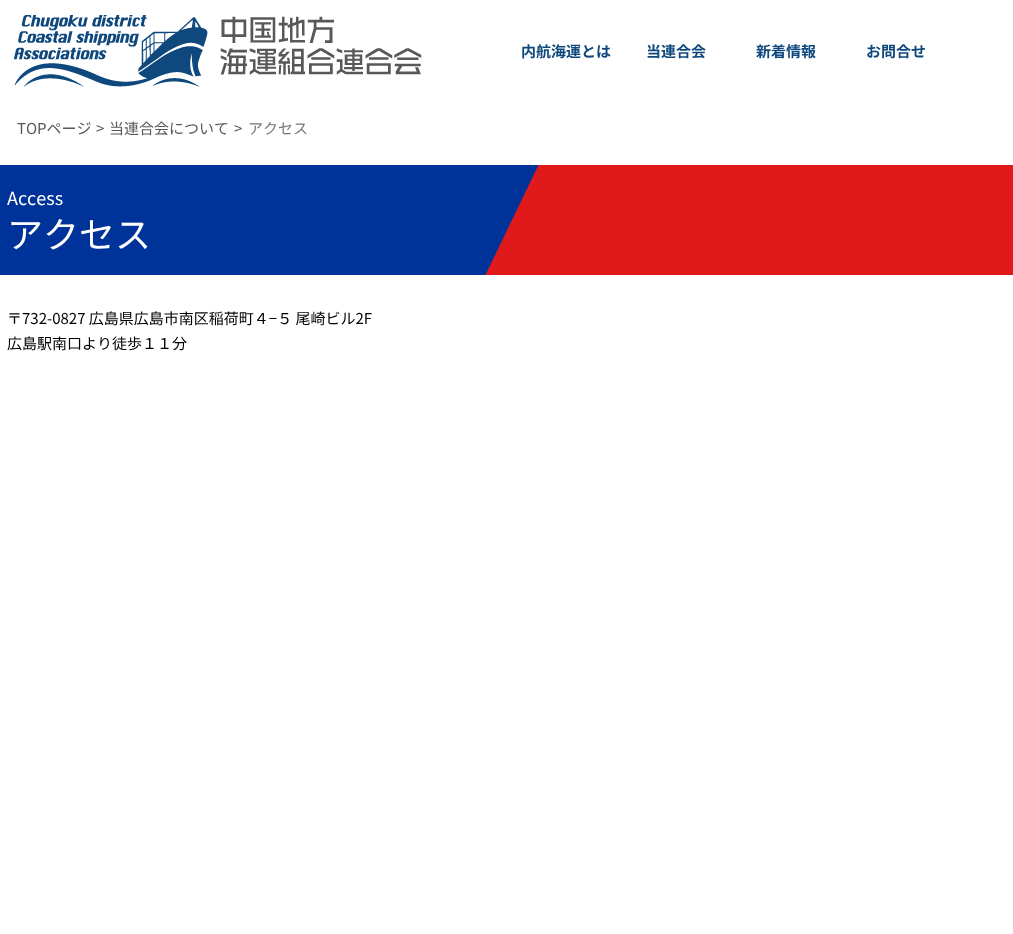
async function draw(canvas) {
  canvas.width = 1013
  canvas.height = 934
  const ctx = canvas.getContext('2d')
  ctx.miterLimit = 4
  ctx.fontKerning = 'none'
  async function loadImage(src) {
    const img = new Image()
    img.src = src
    await img.decode()
    return img
  }

  ctx.fillStyle = '#fff'
  ctx.fillRect(0, 0, 1013, 934)
  ctx.drawImage(await loadImage('image0.png'), 14, 15, 408, 72)
  ctx.font = 'bold 15px Noto Sans JP'
  ctx.fillStyle = '#0f487d'
  ctx.fillText('内航海運とは', 521, 57)
  ctx.fillText('当連合会', 646, 57)
  ctx.fillText('新着情報', 756, 57)
  ctx.fillText('お問合せ', 866, 57)
  ctx.font = '15px Noto Sans JP'
  ctx.fillStyle = '#595858'
  ctx.fillText('TOPページ', 17, 134)
  ctx.fillText('>', 96, 134)
  ctx.fillText('当連合会について', 109, 134)
  ctx.fillText('>', 234, 134)
  ctx.fillStyle = '#777'
  ctx.fillText('アクセス', 248, 134)
  ctx.drawImage(await loadImage('image1.png'), 0, 165, 1013, 110)
  ctx.font = '18px Noto Sans JP'
  ctx.fillStyle = '#fff'
  ctx.fillText('Access', 7, 205)
  ctx.font = '36px Noto Sans JP'
  ctx.fillText('アクセス', 7, 248)
  ctx.font = '15px Noto Sans JP'
  ctx.fillStyle = '#000'
  ctx.fillText('〒732-0827 広島県広島市南区稲荷町４−５ 尾崎ビル2F', 7, 324)
  ctx.fillText('広島駅南口より徒歩１１分', 7, 349)
}

draw(document.querySelector('canvas'))
